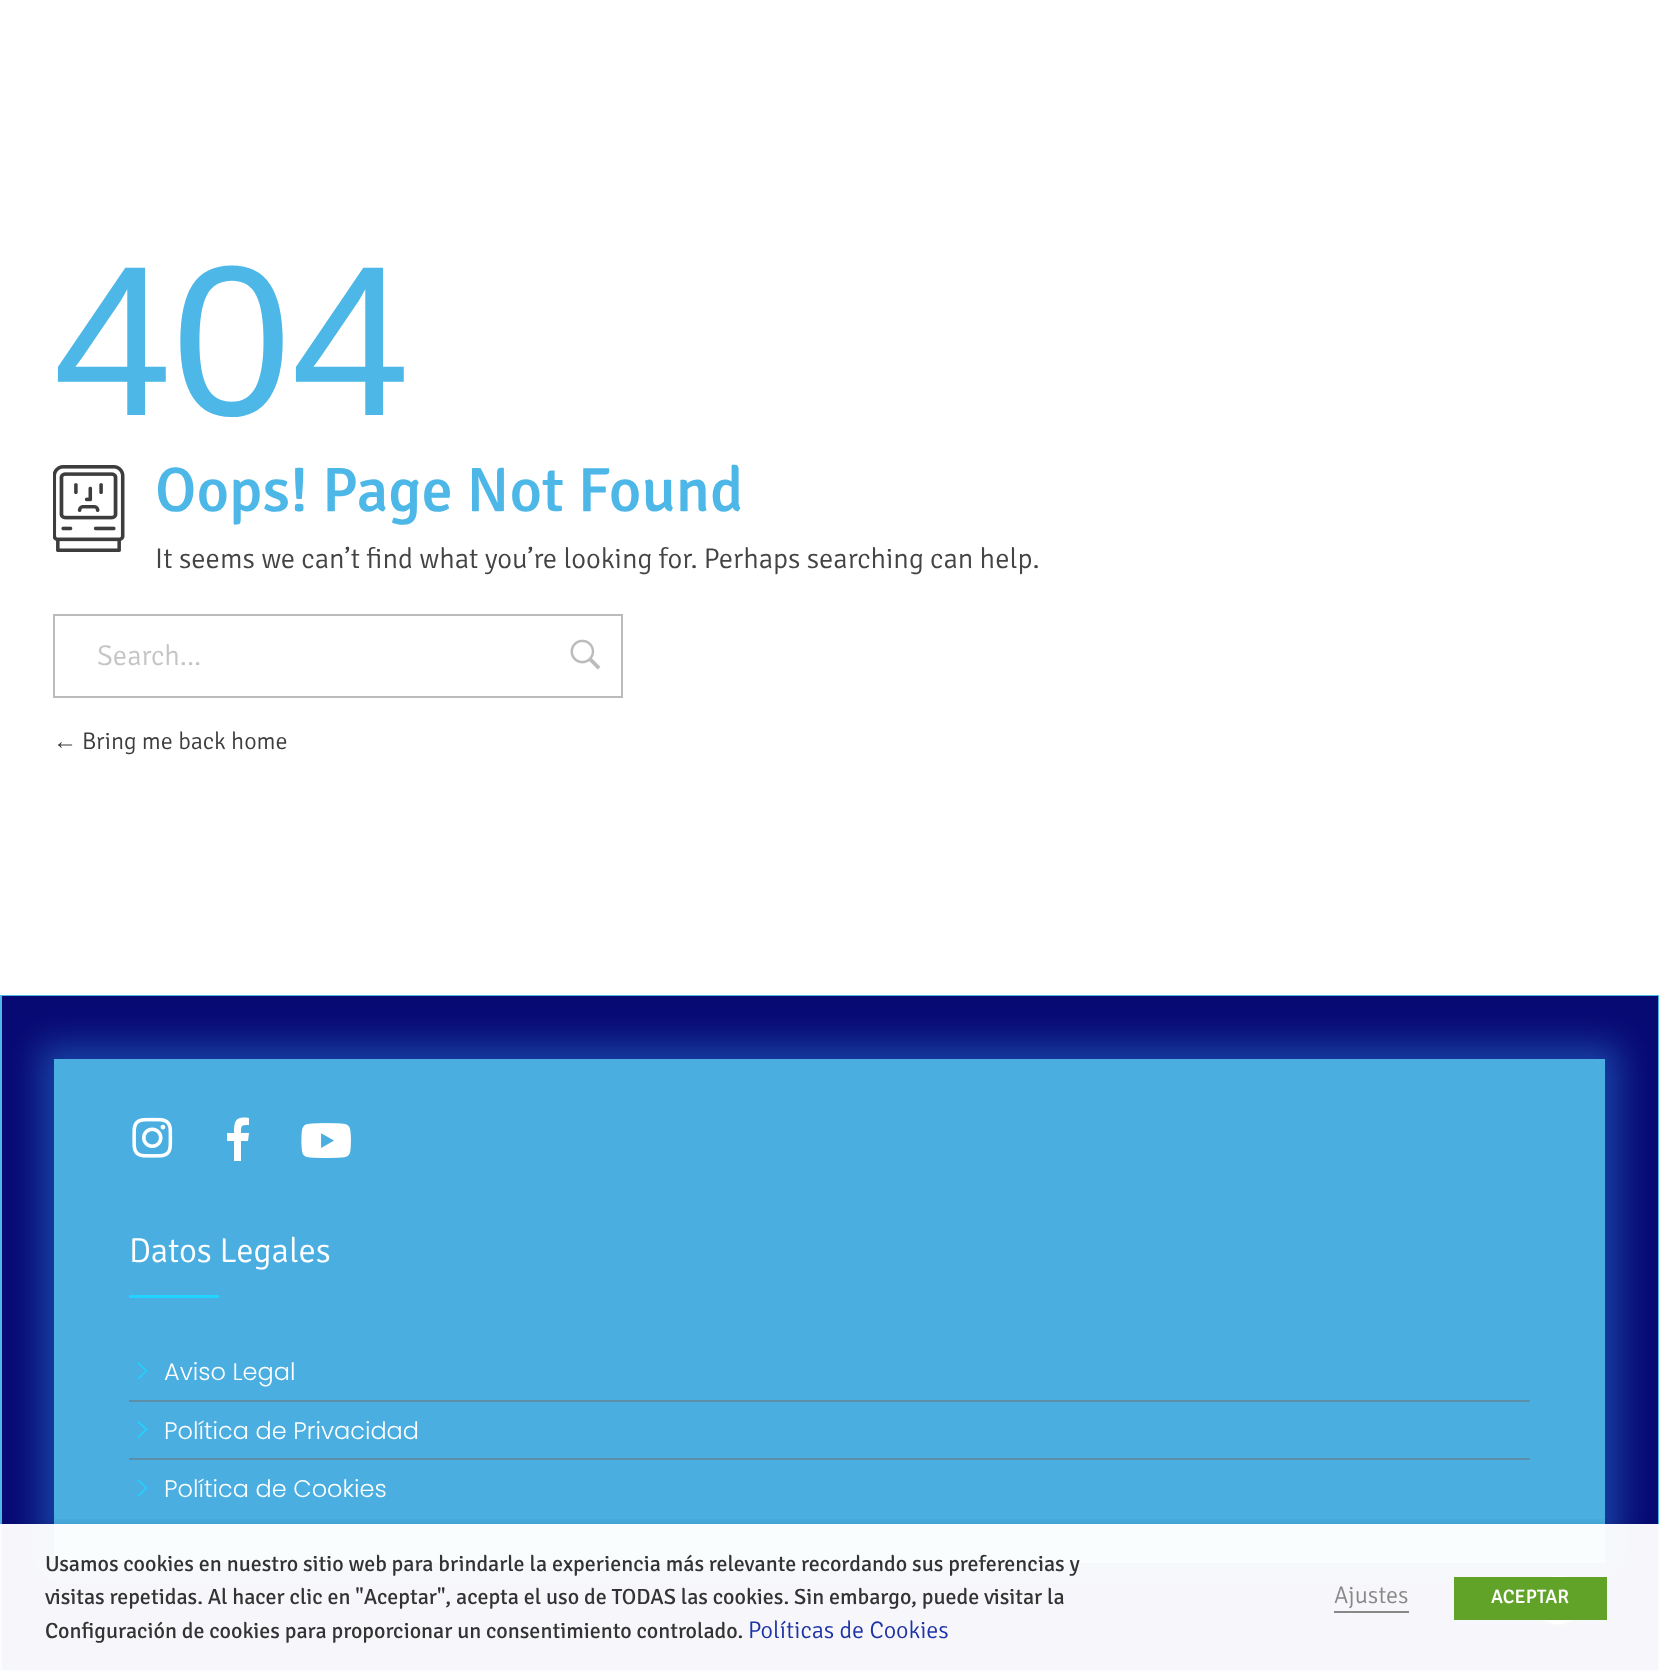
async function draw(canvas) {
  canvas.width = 1659
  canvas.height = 1671
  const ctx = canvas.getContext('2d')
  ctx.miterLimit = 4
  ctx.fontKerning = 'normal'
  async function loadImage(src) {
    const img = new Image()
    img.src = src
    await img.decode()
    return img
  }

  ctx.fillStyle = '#fff'
  ctx.fillRect(0, 0, 1659, 1671)
  ctx.font = '214px Liberation Sans'
  ctx.fillStyle = '#4db7e7'
  ctx.fillText('404', 53, 415)
  ctx.drawImage(await loadImage('image0.png'), 53, 465, 72, 87)
  ctx.font = '500 62.75px Signika'
  ctx.fillText('Oops! Page Not Found', 155, 511)
  ctx.font = '300 28.5px Signika'
  ctx.fillStyle = '#444'
  ctx.fillText('It seems we can’t find what you’re looking for. Perhaps searching can help.', 155, 568)
  ctx.strokeStyle = '#bbb'
  ctx.lineWidth = 2
  ctx.strokeRect(54, 615, 568, 82)
  ctx.fillStyle = '#c5c5c5'
  ctx.fillText('Search...', 97, 665)
  ctx.drawImage(await loadImage('image1.png'), 570, 639, 31, 31)
  ctx.font = '24px Liberation Sans'
  ctx.fillStyle = '#3d3d3d'
  ctx.fillText('←', 53, 749)
  ctx.font = '300 24px Signika'
  ctx.fillText('Bring me back home', 82, 749)
  ctx.fillStyle = '#4db7e7'
  ctx.fillRect(0, 995, 1659, 676)
  ctx.fillStyle = '#080a74'
  ctx.fillRect(2, 996, 1656, 674)
  ctx.fillStyle = '#3094ea66'
  ctx.filter = 'blur(16px)'
  ctx.beginPath()
  ctx.rect(39, 1044, 1581, 534)
  ctx.fill()
  ctx.filter = 'none'
  ctx.fillStyle = '#4aaee1'
  ctx.fillRect(54, 1059, 1551, 504)
  ctx.drawImage(await loadImage('image2.png'), 132, 1117, 41, 41)
  ctx.fillStyle = '#fff'
  ctx.beginPath()
  ctx.moveTo(249, 1118)
  ctx.bezierCurveTo(236, 1116, 234, 1120, 234, 1133)
  ctx.lineTo(227, 1133)
  ctx.lineTo(227, 1141)
  ctx.lineTo(234, 1141)
  ctx.lineTo(234, 1161)
  ctx.lineTo(241, 1161)
  ctx.lineTo(241, 1141)
  ctx.lineTo(248, 1141)
  ctx.lineTo(249, 1133)
  ctx.lineTo(241, 1133)
  ctx.bezierCurveTo(241, 1125, 241, 1125, 249, 1125)
  ctx.closePath()
  ctx.fill()
  ctx.drawImage(await loadImage('image3.png'), 301, 1123, 50, 35)
  ctx.font = '300 34.5px Signika'
  ctx.fillText('Datos Legales', 129, 1262)
  ctx.fillStyle = '#20d4ff'
  ctx.fillRect(129, 1295, 90, 3)
  ctx.fillStyle = '#5d8fa9'
  ctx.fillRect(129, 1400, 1401, 2)
  ctx.fillStyle = '#20d4ff'
  ctx.beginPath()
  ctx.moveTo(137.5, 1363.5)
  ctx.lineTo(145.5, 1371)
  ctx.lineTo(137.5, 1378.5)
  ctx.lineTo(138.5, 1379.5)
  ctx.lineTo(147.5, 1371)
  ctx.lineTo(138.5, 1362.5)
  ctx.closePath()
  ctx.fill()
  ctx.font = '300 24px Poppins'
  ctx.fillStyle = '#fff'
  ctx.fillText('Aviso Legal', 164, 1380)
  ctx.fillStyle = '#5d8fa9'
  ctx.fillRect(129, 1458, 1401, 2)
  ctx.drawImage(await loadImage('image4.png'), 137, 1421, 11, 17)
  ctx.fillStyle = '#fff'
  ctx.fillText('Política de Privacidad', 164, 1439)
  ctx.fillStyle = '#20d4ff'
  ctx.beginPath()
  ctx.moveTo(137.5, 1480.5)
  ctx.lineTo(145.5, 1488)
  ctx.lineTo(137.5, 1495.5)
  ctx.lineTo(138.5, 1496.5)
  ctx.lineTo(147.5, 1488)
  ctx.lineTo(138.5, 1479.5)
  ctx.closePath()
  ctx.fill()
  ctx.fillStyle = '#fff'
  ctx.fillText('Política de Cookies', 164, 1497)
  ctx.beginPath()
  ctx.arc(1558, 1600, 25, 0, 2 * Math.PI)
  ctx.fill()
  ctx.strokeStyle = '#3d3d3d'
  ctx.stroke()
  ctx.save()
  ctx.beginPath()
  ctx.rect(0, 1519, 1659, 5)
  ctx.clip()
  ctx.fillStyle = '#00000080'
  ctx.filter = 'blur(7.5px)'
  ctx.beginPath()
  ctx.rect(0, 1532, 1659, 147)
  ctx.fill()
  ctx.filter = 'none'
  ctx.restore()
  ctx.fillStyle = '#fffffff7'
  ctx.fillRect(0, 1524, 1659, 147)
  ctx.font = '22px Signika'
  ctx.fillStyle = '#333'
  ctx.fillText('Usamos cookies en nuestro sitio web para brindarle la experiencia más relevante recordando sus preferencias y', 45, 1571)
  ctx.fillText('visitas repetidas. Al hacer clic en "Aceptar", acepta el uso de TODAS las cookies. Sin embargo, puede visitar la', 45, 1604)
  ctx.fillText('Configuración de cookies para proporcionar un consentimiento controlado.', 45, 1638)
  ctx.font = '300 24px Signika'
  ctx.fillStyle = '#1d32a5'
  ctx.fillText('Políticas de Cookies', 748, 1638)
  ctx.fillStyle = '#898888'
  ctx.fillText('Ajustes', 1334, 1603)
  ctx.fillRect(1334, 1611, 75, 2)
  ctx.fillStyle = '#61a229'
  ctx.fillRect(1454, 1577, 153, 43)
  ctx.font = '500 19.5px Signika'
  ctx.fillStyle = '#fff'
  ctx.fillText('ACEPTAR', 1491, 1603)
}

draw(document.querySelector('canvas'))
